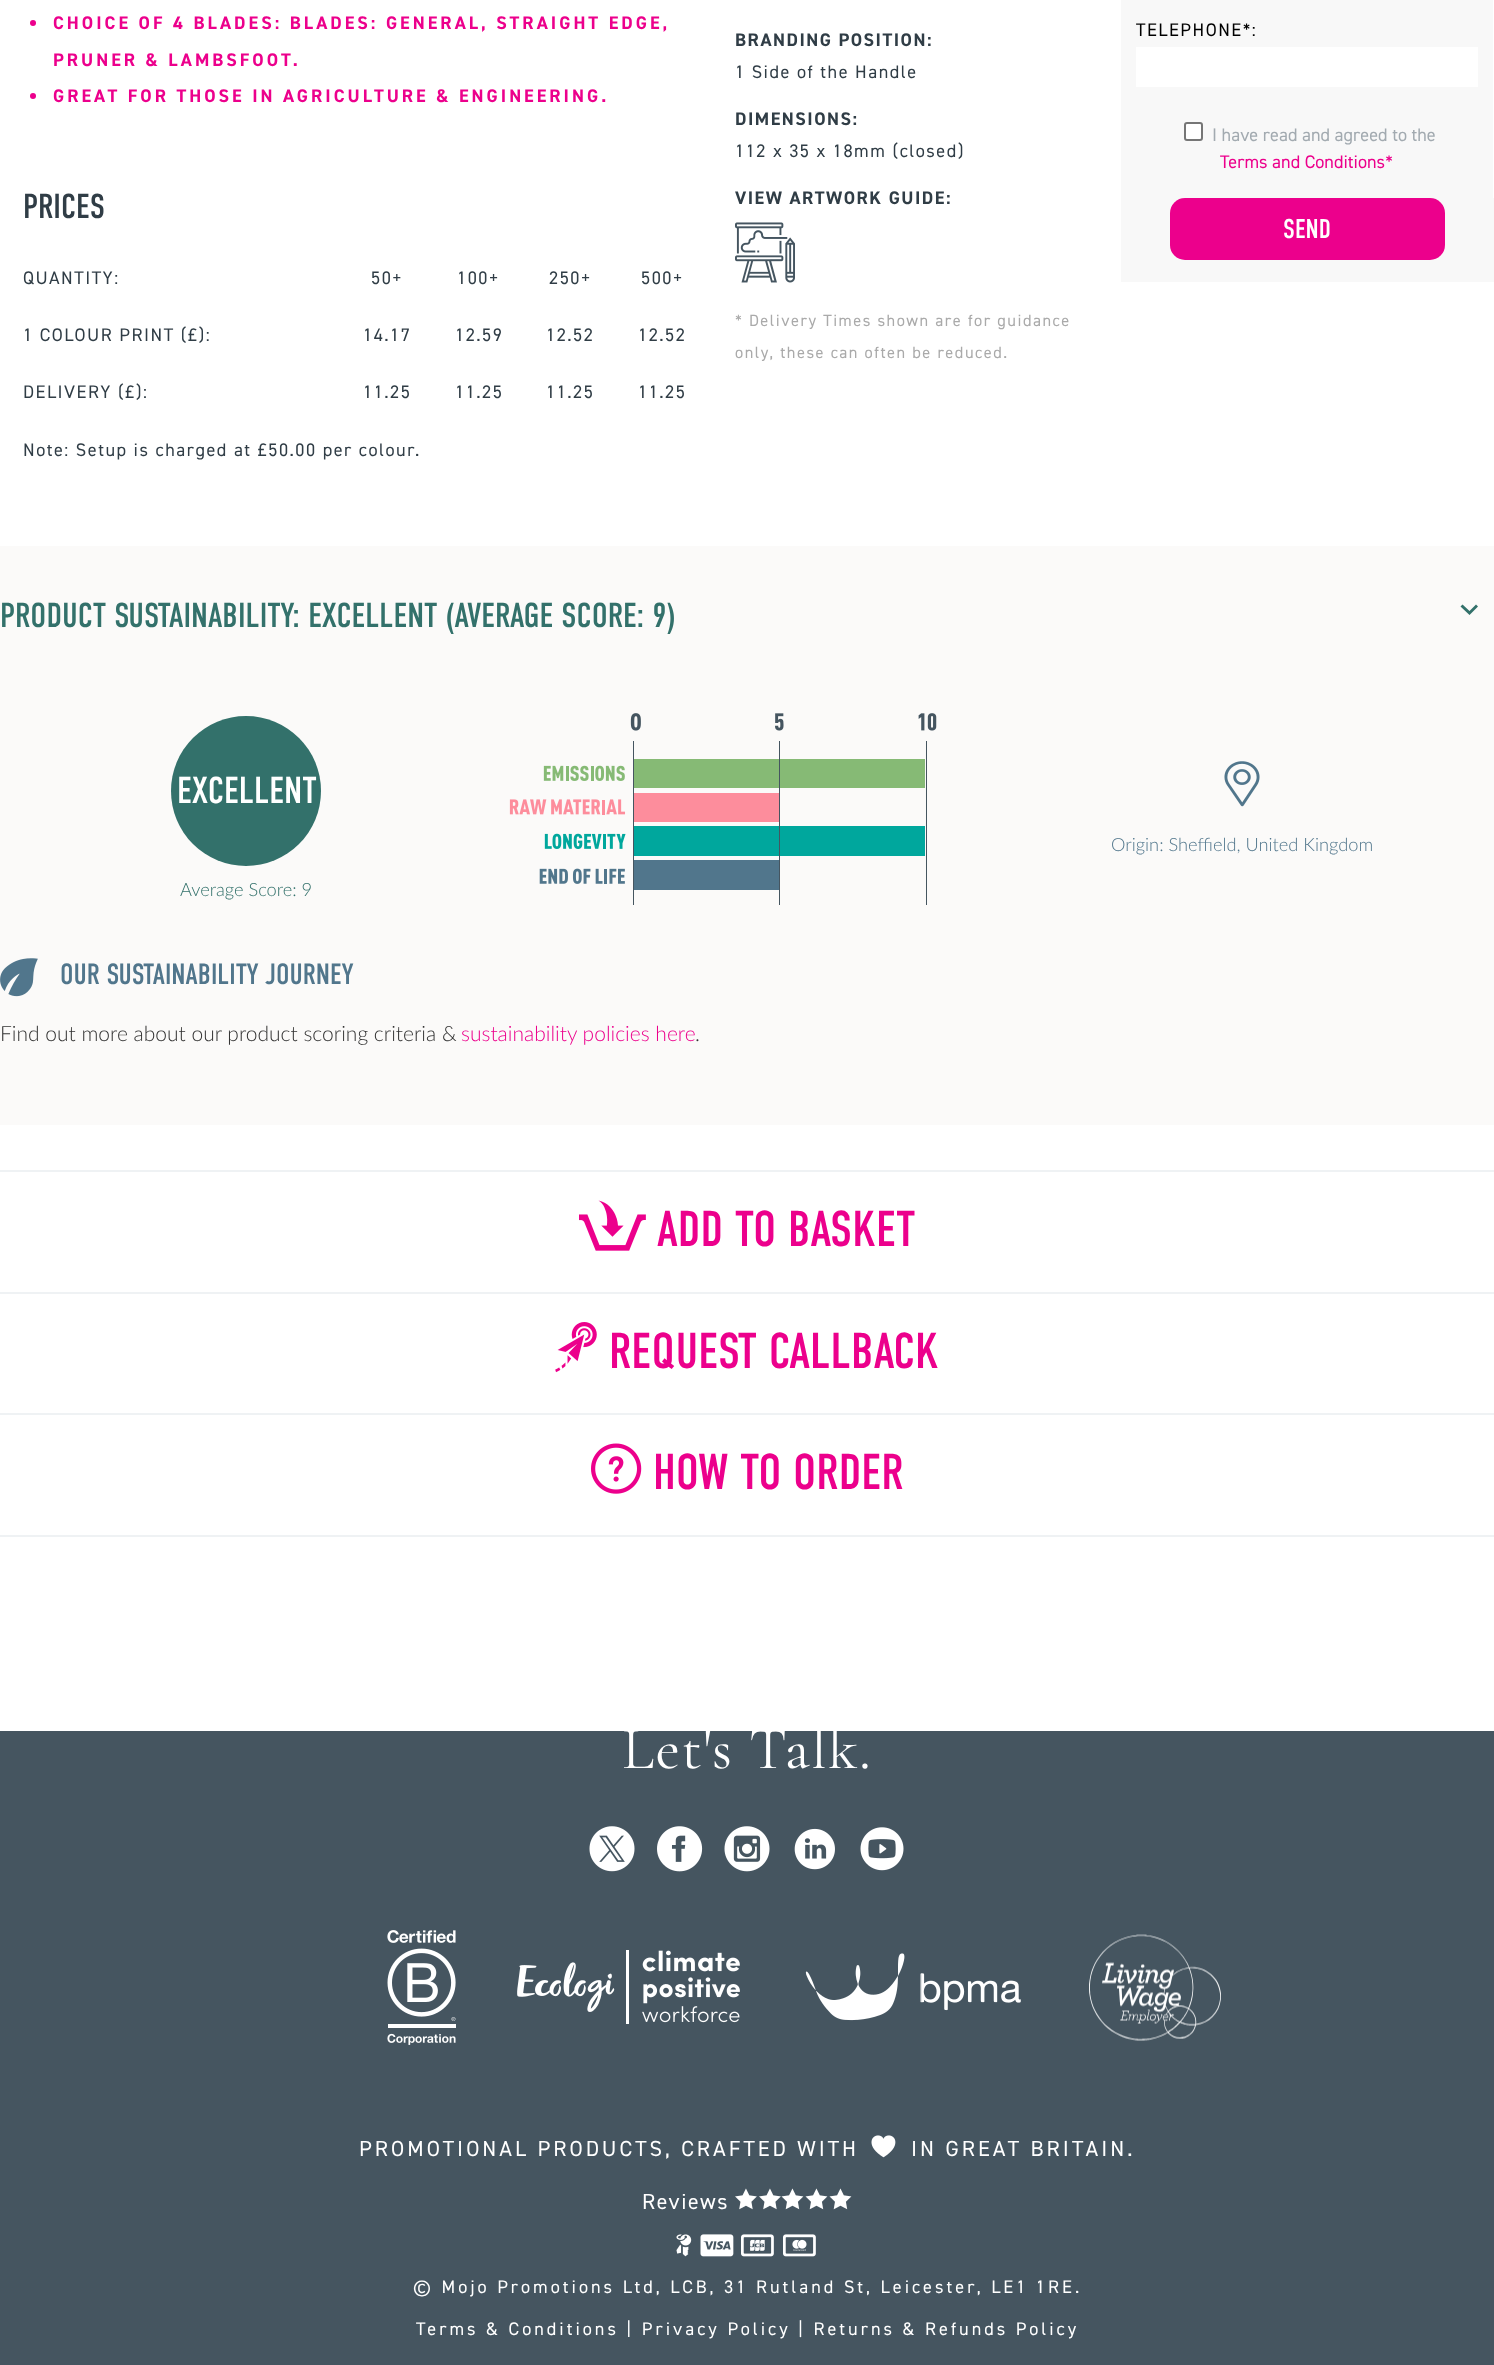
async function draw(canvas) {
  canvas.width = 1494
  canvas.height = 2365
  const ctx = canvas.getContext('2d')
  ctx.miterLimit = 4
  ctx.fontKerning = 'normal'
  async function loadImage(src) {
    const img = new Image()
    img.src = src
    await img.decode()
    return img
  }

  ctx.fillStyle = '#455560'
  ctx.fillRect(0, 0, 1494, 2365)
  ctx.fillStyle = '#fff'
  ctx.fillRect(0, 0, 1494, 1731)
  ctx.fillStyle = '#ec008c'
  ctx.beginPath()
  ctx.arc(33, 23, 3, 0, 2 * Math.PI)
  ctx.fill()
  ctx.letterSpacing = '3px'
  ctx.font = 'bold 18.25px "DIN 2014"'
  ctx.fillText('CHOICE OF 4 BLADES: BLADES: GENERAL, STRAIGHT EDGE,', 53, 29)
  ctx.fillText('PRUNER & LAMBSFOOT.', 53, 66)
  ctx.beginPath()
  ctx.arc(33, 96, 3, 0, 2 * Math.PI)
  ctx.fill()
  ctx.fillText('GREAT FOR THOSE IN AGRICULTURE & ENGINEERING.', 53, 102)
  ctx.letterSpacing = '0px'
  ctx.font = '34.7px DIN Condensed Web'
  ctx.fillStyle = '#303d46'
  ctx.fillText('PRICES', 23, 218)
  ctx.letterSpacing = '1.5px'
  ctx.font = '18.25px "DIN 2014"'
  ctx.fillText('QUANTITY:', 23, 284)
  ctx.fillText('50+', 371, 284)
  ctx.fillText('100+', 457, 284)
  ctx.fillText('250+', 549, 284)
  ctx.fillText('500+', 641, 284)
  ctx.fillText('1 COLOUR PRINT (£):', 23, 341)
  ctx.fillText('14.17', 363, 341)
  ctx.fillText('12.59', 455, 341)
  ctx.fillText('12.52', 546, 341)
  ctx.fillText('12.52', 638, 341)
  ctx.fillText('DELIVERY (£):', 23, 398)
  ctx.fillText('11.25', 363, 398)
  ctx.fillText('11.25', 455, 398)
  ctx.fillText('11.25', 546, 398)
  ctx.fillText('11.25', 638, 398)
  ctx.fillText('Note: Setup is charged at £50.00 per colour.', 23, 456)
  ctx.font = 'bold 18.25px "DIN 2014"'
  ctx.fillText('BRANDING POSITION:', 735, 46)
  ctx.font = '18.25px "DIN 2014"'
  ctx.fillText('1 Side of the Handle', 735, 78)
  ctx.font = 'bold 18.25px "DIN 2014"'
  ctx.fillText('DIMENSIONS:', 735, 125)
  ctx.font = '18.25px "DIN 2014"'
  ctx.fillText('112 x 35 x 18mm (closed)', 735, 157)
  ctx.font = 'bold 18.25px "DIN 2014"'
  ctx.fillText('VIEW ARTWORK GUIDE:', 735, 204)
  ctx.drawImage(await loadImage('image0.png'), 735, 222, 60, 61)
  ctx.font = '16.4px "DIN 2014"'
  ctx.fillStyle = '#aaa'
  ctx.fillText('* Delivery Times shown are for guidance', 735, 326)
  ctx.fillText('only, these can often be reduced.', 735, 358)
  ctx.fillStyle = '#f8f8f8'
  ctx.fillRect(1121, 0, 372, 198)
  ctx.font = '18.25px "DIN 2014"'
  ctx.fillStyle = '#000'
  ctx.fillText('TELEPHONE*:', 1136, 36)
  ctx.fillStyle = '#fff'
  ctx.fillRect(1136, 47, 342, 40)
  ctx.beginPath()
  ctx.roundRect(1185, 123, 17, 17, 2)
  ctx.fill()
  ctx.strokeStyle = '#767676'
  ctx.lineWidth = 2
  ctx.stroke()
  ctx.letterSpacing = '0px'
  ctx.fillStyle = '#a2aab0'
  ctx.fillText('I have read and agreed to the', 1212, 141)
  ctx.fillStyle = '#ec008c'
  ctx.fillText('Terms and Conditions*', 1220, 168)
  ctx.fillStyle = '#f8f8f8'
  ctx.fillRect(1121, 198, 373, 84)
  ctx.fillStyle = '#ec008c'
  ctx.beginPath()
  ctx.roundRect(1170, 198, 275, 62, 15)
  ctx.fill()
  ctx.font = '27px DIN Condensed Web'
  ctx.fillStyle = '#fff'
  ctx.fillText('SEND', 1283, 238)
  ctx.fillStyle = '#fbfaf9'
  ctx.fillRect(0, 546, 1494, 579)
  ctx.font = '34.7px DIN Condensed Web'
  ctx.fillStyle = '#33716b'
  ctx.fillText('PRODUCT SUSTAINABILITY: EXCELLENT (AVERAGE SCORE: 9)', 0, 627)
  ctx.beginPath()
  ctx.moveTo(1462.5, 604.5)
  ctx.lineTo(1469.5, 611)
  ctx.lineTo(1476, 604.5)
  ctx.lineTo(1478, 606.5)
  ctx.lineTo(1469.5, 615)
  ctx.lineTo(1460.5, 606.5)
  ctx.closePath()
  ctx.fill()
  ctx.beginPath()
  ctx.arc(246, 791, 75, 0, 2 * Math.PI)
  ctx.fill()
  ctx.font = '37.5px DIN Condensed Web'
  ctx.fillStyle = '#fff'
  ctx.fillText('EXCELLENT', 177, 803)
  ctx.font = '300 18.25px Lato'
  ctx.fillStyle = '#33716b'
  ctx.fillText('Average Score: 9', 180, 896)
  ctx.drawImage(await loadImage('image1.png'), 509, 713, 428, 192)
  ctx.drawImage(await loadImage('image2.png'), 1224, 761, 36, 46)
  ctx.fillStyle = '#51768c'
  ctx.fillText('Origin: Sheffield, United Kingdom', 1111, 851)
  ctx.drawImage(await loadImage('image3.png'), 0, 958, 38, 39)
  ctx.font = '29.25px DIN Condensed Web'
  ctx.fillText('OUR SUSTAINABILITY JOURNEY', 60, 984)
  ctx.font = '300 21px Lato'
  ctx.fillStyle = '#333'
  ctx.fillText('Find out more about our product scoring criteria &', 0, 1041)
  ctx.fillStyle = '#ec008c'
  ctx.fillText('sustainability policies here', 461, 1041)
  ctx.fillStyle = '#333'
  ctx.fillText('.', 695, 1041)
  ctx.fillStyle = '#eff2f4'
  ctx.fillRect(0, 1170, 1494, 2)
  ctx.fillRect(0, 1535, 1494, 2)
  ctx.fillRect(0, 1292, 1494, 2)
  ctx.drawImage(await loadImage('image4.png'), 579, 1200, 67, 51)
  ctx.font = '50.25px DIN Condensed Web'
  ctx.fillStyle = '#ec008c'
  ctx.fillText('ADD TO BASKET', 657, 1246)
  ctx.fillStyle = '#eff2f4'
  ctx.fillRect(0, 1413, 1494, 2)
  ctx.drawImage(await loadImage('image5.png'), 555, 1322, 42, 51)
  ctx.fillStyle = '#ec008c'
  ctx.fillText('REQUEST CALLBACK', 609, 1368)
  ctx.drawImage(await loadImage('image6.png'), 591, 1443, 51, 51)
  ctx.fillText('HOW TO ORDER', 653, 1489)
  ctx.letterSpacing = '1.5px'
  ctx.font = '60px Cormorant Garamond'
  ctx.fillStyle = '#fff'
  ctx.fillText('Let\'s Talk.', 622, 1768)
  ctx.drawImage(await loadImage('image7.png'), 589, 1826, 46, 46)
  ctx.drawImage(await loadImage('image8.png'), 657, 1826, 46, 46)
  ctx.drawImage(await loadImage('image9.png'), 724, 1826, 46, 46)
  ctx.drawImage(await loadImage('image10.png'), 794, 1828, 41, 42)
  ctx.drawImage(await loadImage('image11.png'), 860, 1827, 44, 44)
  ctx.drawImage(await loadImage('image12.png'), 387, 1930, 69, 115)
  ctx.drawImage(await loadImage('image13.png'), 517, 1950, 223, 74)
  ctx.drawImage(await loadImage('image14.png'), 805, 1953, 216, 68)
  ctx.drawImage(await loadImage('image15.png'), 1089, 1934, 132, 107)
  ctx.letterSpacing = '3px'
  ctx.font = '21.9px "DIN 2014"'
  ctx.fillText('PROMOTIONAL PRODUCTS, CRAFTED WITH', 359, 2156)
  ctx.drawImage(await loadImage('image16.png'), 871, 2135, 25, 23)
  ctx.fillText('IN GREAT BRITAIN.', 911, 2156)
  ctx.letterSpacing = '1.5px'
  ctx.fillText('Reviews', 642, 2209)
  ctx.drawImage(await loadImage('image17.png'), 735, 2188, 22, 22)
  ctx.drawImage(await loadImage('image17.png'), 759, 2188, 22, 22)
  ctx.drawImage(await loadImage('image18.png'), 781, 2188, 23, 22)
  ctx.drawImage(await loadImage('image18.png'), 805, 2188, 23, 22)
  ctx.drawImage(await loadImage('image18.png'), 829, 2188, 23, 22)
  ctx.drawImage(await loadImage('image19.png'), 676, 2234, 16, 23)
  ctx.drawImage(await loadImage('image20.png'), 700, 2234, 34, 23)
  ctx.drawImage(await loadImage('image21.png'), 741, 2234, 33, 23)
  ctx.drawImage(await loadImage('image22.png'), 783, 2234, 33, 23)
  ctx.letterSpacing = '3px'
  ctx.font = '18.25px "DIN 2014"'
  ctx.fillText('© Mojo Promotions Ltd, LCB, 31 Rutland St, Leicester, LE1 1RE.', 413, 2293)
  ctx.fillText('Terms & Conditions | Privacy Policy | Returns & Refunds Policy', 416, 2335)
}

draw(document.querySelector('canvas'))
